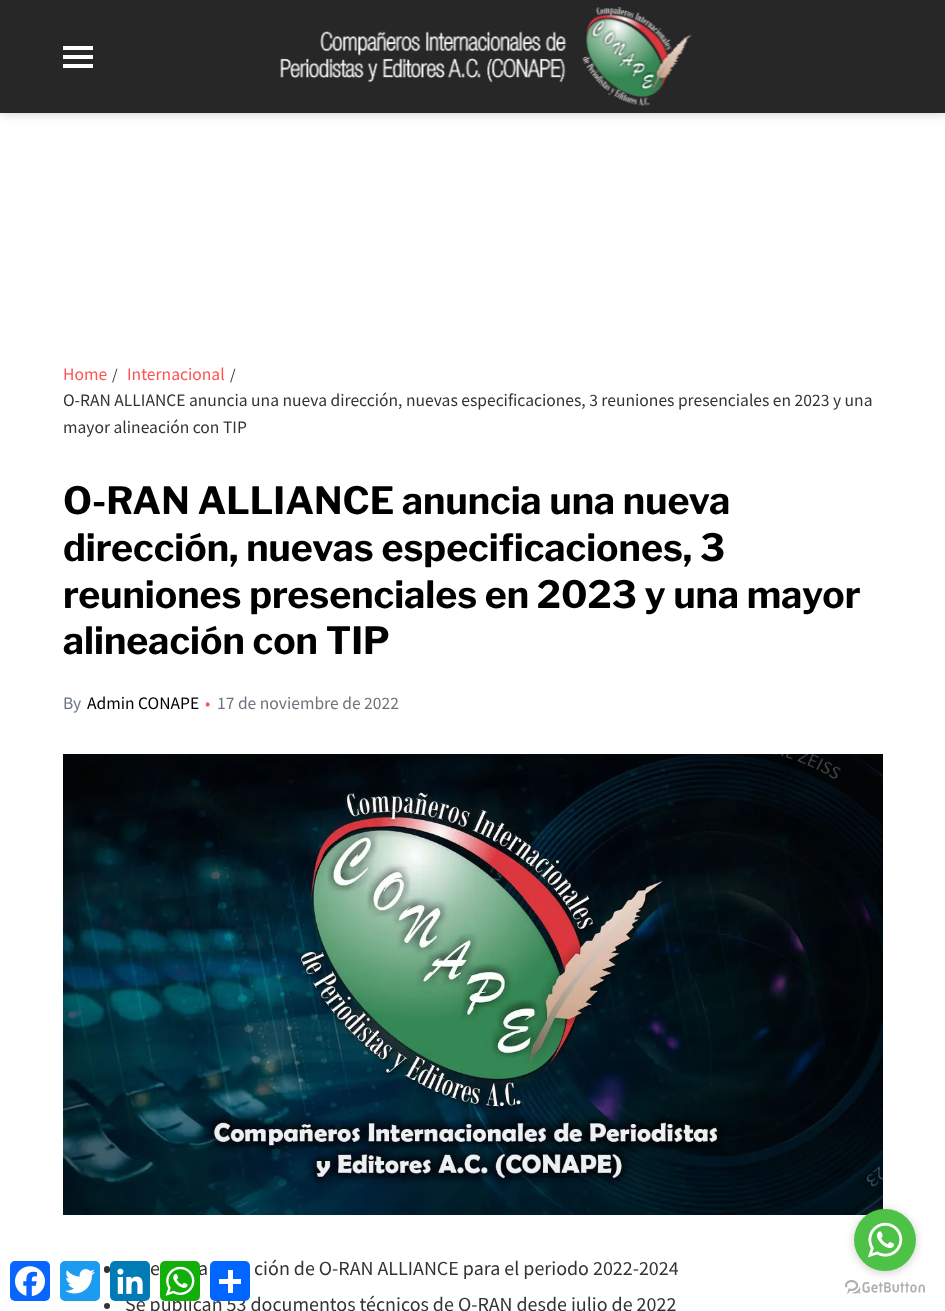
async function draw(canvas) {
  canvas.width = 945
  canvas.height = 1311
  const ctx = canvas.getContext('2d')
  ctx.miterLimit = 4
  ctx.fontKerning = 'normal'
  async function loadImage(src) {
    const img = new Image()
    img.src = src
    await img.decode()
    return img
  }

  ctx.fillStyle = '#fff'
  ctx.fillRect(0, 0, 945, 1311)
  ctx.fillStyle = '#00000026'
  ctx.filter = 'blur(5px)'
  ctx.beginPath()
  ctx.rect(0, 3, 945, 112)
  ctx.fill()
  ctx.filter = 'none'
  ctx.fillStyle = '#272727'
  ctx.fillRect(0, 0, 945, 113)
  ctx.fillStyle = '#fff'
  ctx.fillRect(63, 46, 30, 4)
  ctx.fillRect(63, 55, 30, 4)
  ctx.fillRect(63, 64, 30, 4)
  ctx.drawImage(await loadImage('image0.png'), 280, 7, 412, 99)
  ctx.font = '17.5px Source Sans Pro'
  ctx.fillStyle = '#ff5252'
  ctx.fillText('Home', 63, 380)
  ctx.font = '16px Source Sans Pro'
  ctx.fillStyle = '#333'
  ctx.fillText('/', 112, 380)
  ctx.font = '17.5px Source Sans Pro'
  ctx.fillStyle = '#ff5252'
  ctx.fillText('Internacional', 127, 380)
  ctx.font = '16px Source Sans Pro'
  ctx.fillStyle = '#333'
  ctx.fillText('/', 230, 380)
  ctx.font = '17.5px Source Sans Pro'
  ctx.fillText('O-RAN ALLIANCE anuncia una nueva dirección, nuevas especificaciones, 3 reuniones presenciales en 2023 y una', 63, 406)
  ctx.fillText('mayor alineación con TIP', 63, 433)
  ctx.font = 'bold 37.5px Libre Franklin'
  ctx.fillStyle = '#000'
  ctx.fillText('O-RAN ALLIANCE anuncia una nueva', 63, 514)
  ctx.fillText('dirección, nuevas especificaciones, 3', 63, 561)
  ctx.fillText('reuniones presenciales en 2023 y una mayor', 63, 608)
  ctx.fillText('alineación con TIP', 63, 654)
  ctx.font = '17.5px Source Sans Pro'
  ctx.fillStyle = '#6c757d'
  ctx.fillText('By', 63, 709)
  ctx.fillStyle = '#000'
  ctx.fillText('Admin CONAPE', 87, 709)
  ctx.fillStyle = '#ff5252'
  ctx.fillText('•', 205, 709)
  ctx.fillStyle = '#6c757d'
  ctx.fillText('17 de noviembre de 2022', 217, 709)
  ctx.drawImage(await loadImage('image1.png'), 63, 754, 820, 461)
  ctx.fillStyle = '#333'
  ctx.beginPath()
  ctx.roundRect(104, 1266, 6, 7, 3)
  ctx.fill()
  ctx.font = '20px Source Sans Pro'
  ctx.fillText('e', 150, 1275)
  ctx.fillText('a', 198, 1275)
  ctx.fillText('ción de O-RAN ALLIANCE para el periodo 2022-2024', 254, 1275)
  ctx.beginPath()
  ctx.arc(107, 1306, 3, 0, 2 * Math.PI)
  ctx.fill()
  ctx.fillText('Se publican 53 documentos técnicos de O-RAN desde julio de 2022', 125, 1311)
  ctx.drawImage(await loadImage('image3.png'), 845, 1280, 80, 14)
  ctx.fillStyle = '#88888866'
  ctx.filter = 'blur(4.5px)'
  ctx.beginPath()
  ctx.roundRect(854, 1210, 62, 63, 31)
  ctx.fill()
  ctx.filter = 'none'
  ctx.fillStyle = '#4dc247'
  ctx.beginPath()
  ctx.arc(885, 1240, 31, 0, 2 * Math.PI)
  ctx.fill()
  ctx.drawImage(await loadImage('image2.png'), 867, 1222, 36, 36)
  ctx.fillStyle = '#0866ff'
  ctx.beginPath()
  ctx.roundRect(10, 1261, 40, 40, 5)
  ctx.fill()
  ctx.drawImage(await loadImage('image4.png'), 15, 1266, 30, 31)
  ctx.fillStyle = '#1d9bf0'
  ctx.beginPath()
  ctx.roundRect(60, 1261, 40, 40, 5)
  ctx.fill()
  ctx.drawImage(await loadImage('image5.png'), 65, 1269, 30, 25)
  ctx.fillStyle = '#007bb5'
  ctx.beginPath()
  ctx.roundRect(110, 1261, 40, 40, 5)
  ctx.fill()
  ctx.drawImage(await loadImage('image6.png'), 117, 1268, 26, 26)
  ctx.fillStyle = '#12af0a'
  ctx.beginPath()
  ctx.roundRect(160, 1261, 40, 40, 5)
  ctx.fill()
  ctx.drawImage(await loadImage('image7.png'), 165, 1266, 30, 30)
  ctx.fillStyle = '#0166ff'
  ctx.beginPath()
  ctx.roundRect(210, 1261, 40, 40, 5)
  ctx.fill()
  ctx.fillStyle = '#fff'
  ctx.fillRect(228, 1270, 5, 23)
  ctx.fillRect(219, 1279, 22, 5)
}

draw(document.querySelector('canvas'))
